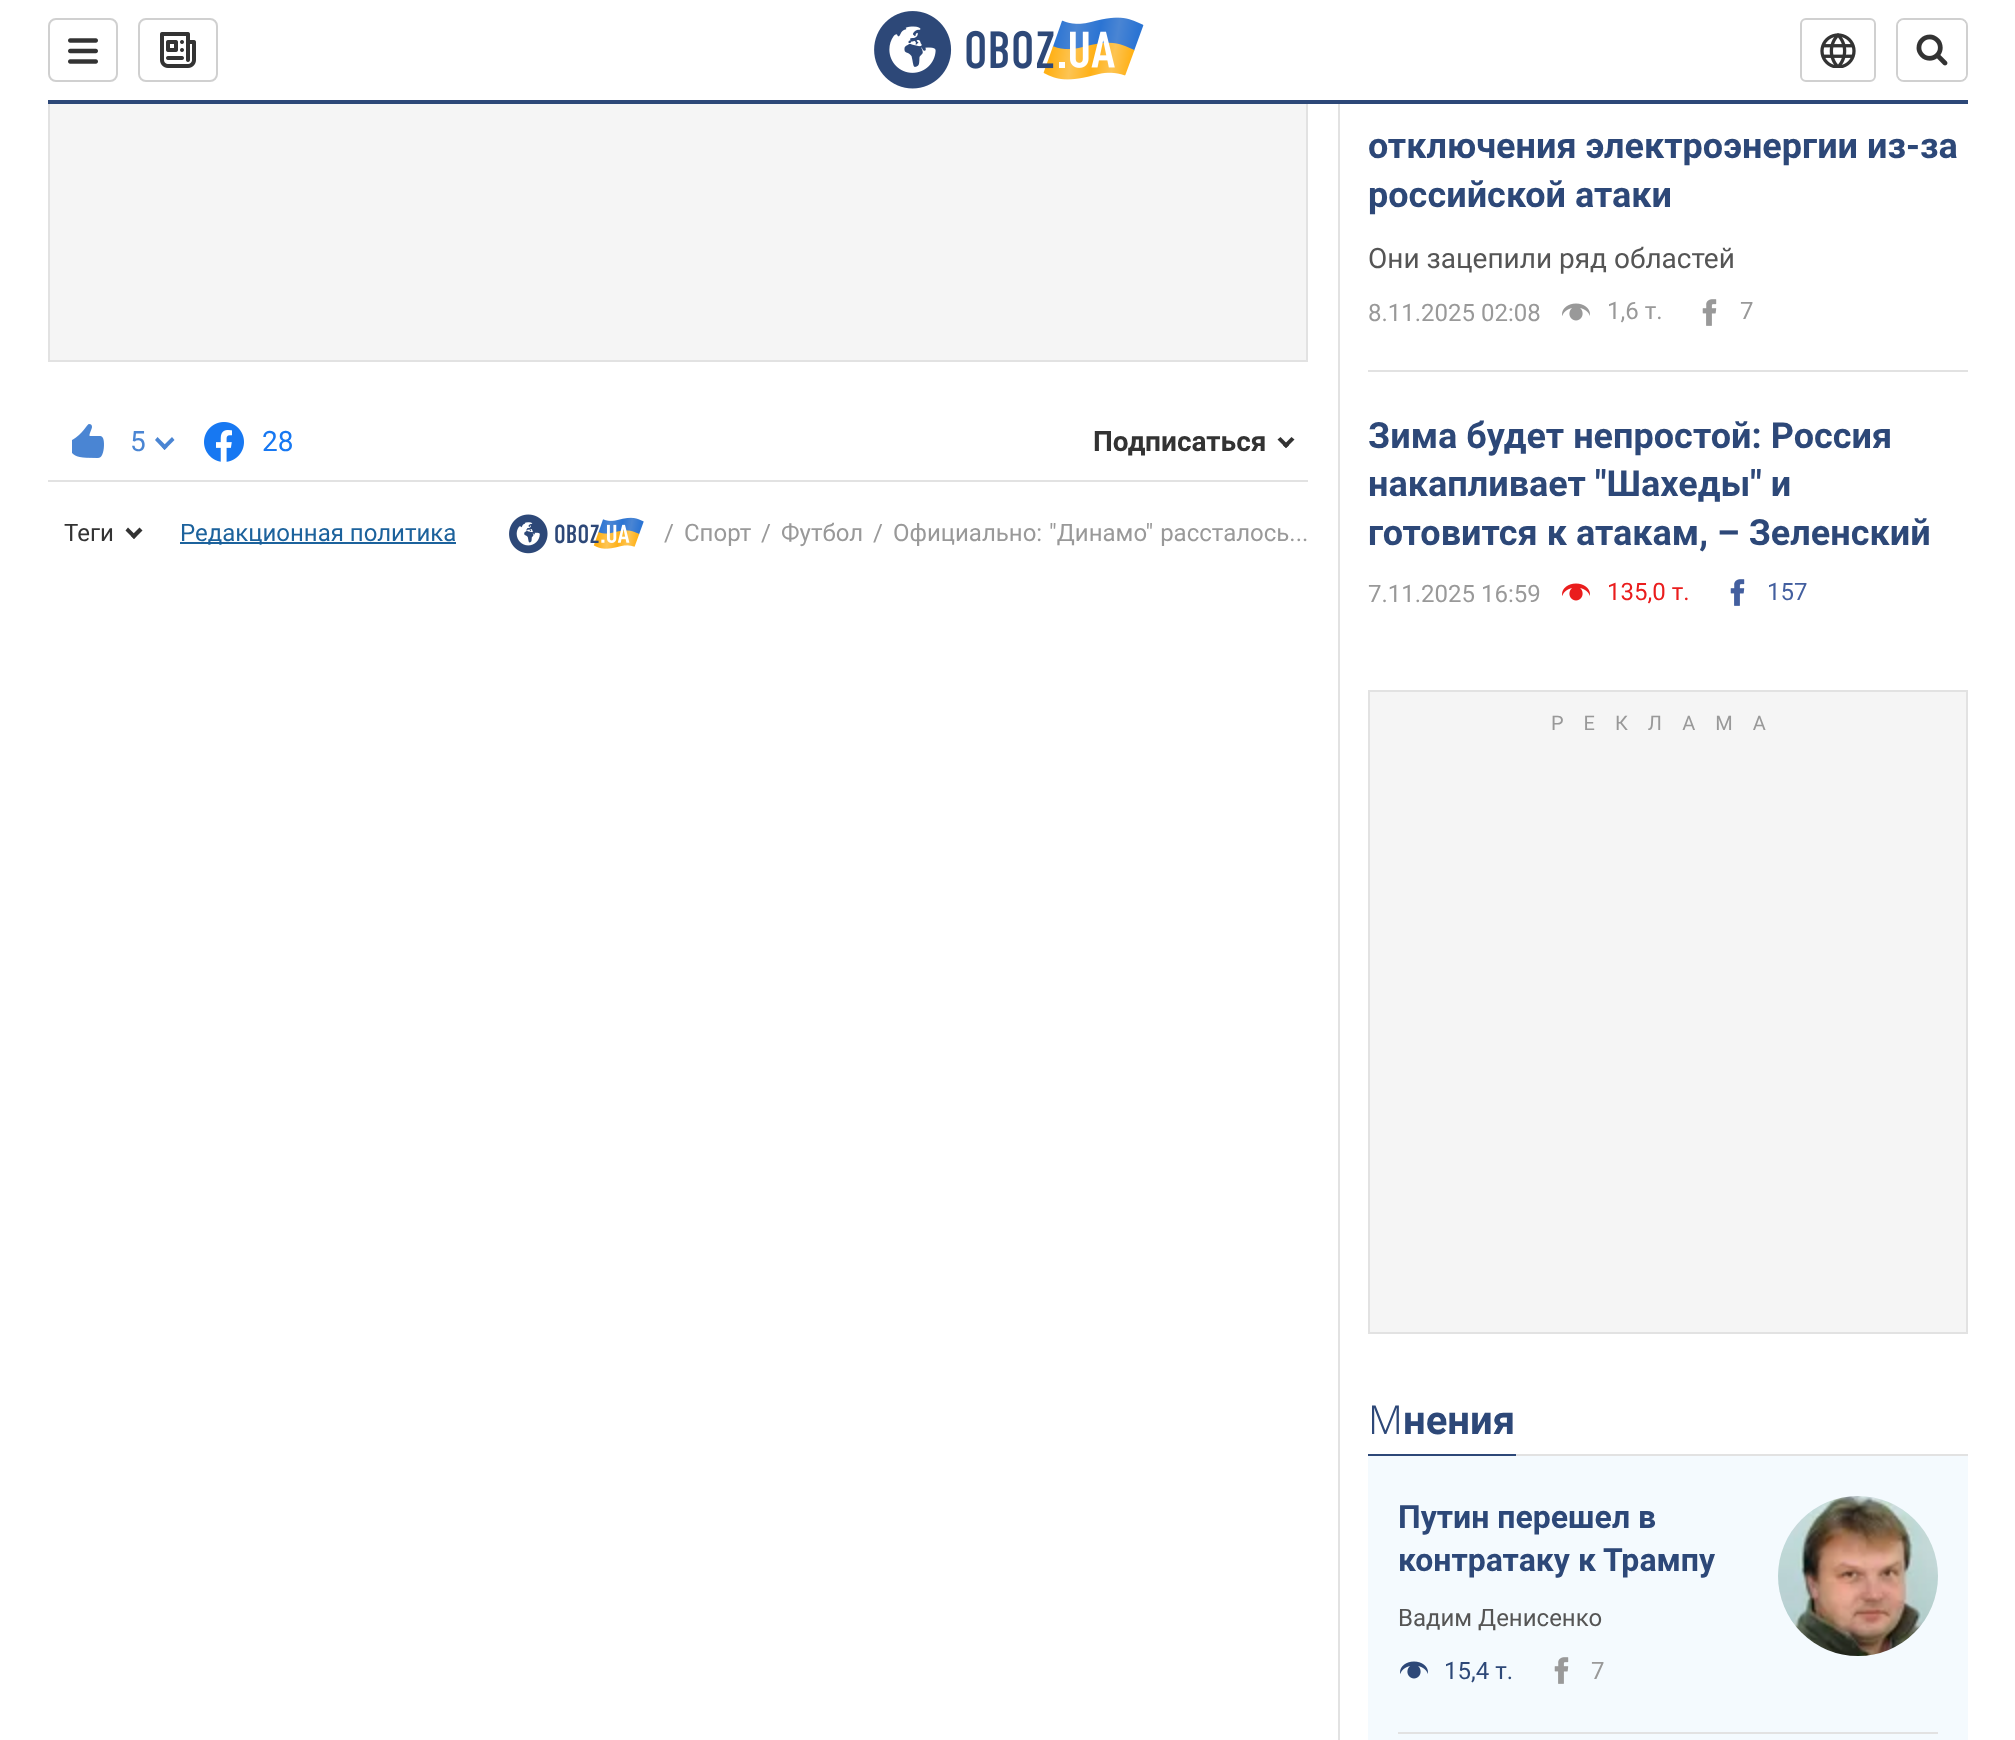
async function draw(canvas) {
  canvas.width = 2015
  canvas.height = 1740
  const ctx = canvas.getContext('2d')
  ctx.miterLimit = 4
  ctx.fontKerning = 'normal'
  async function loadImage(src) {
    const img = new Image()
    img.src = src
    await img.decode()
    return img
  }

  ctx.fillStyle = '#fff'
  ctx.fillRect(0, 0, 2015, 1740)
  ctx.fillStyle = '#f5f5f5'
  ctx.fillRect(50, 104, 1256, 256)
  ctx.strokeStyle = '#e2e2e2'
  ctx.lineWidth = 2
  ctx.strokeRect(49, -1, 1258, 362)
  ctx.fillStyle = '#fff'
  ctx.fillRect(48, 0, 1260, 104)
  ctx.fillStyle = '#2d4878'
  ctx.fillRect(48, 100, 1920, 4)
  ctx.beginPath()
  ctx.roundRect(49, 19, 68, 62, 7)
  ctx.strokeStyle = '#d0d0d0'
  ctx.stroke()
  ctx.drawImage(await loadImage('image0.png'), 68, 38, 30, 26)
  ctx.beginPath()
  ctx.roundRect(139, 19, 78, 62, 7)
  ctx.stroke()
  ctx.drawImage(await loadImage('image1.png'), 160, 32, 36, 36)
  ctx.drawImage(await loadImage('image2.png'), 874, 11, 270, 78)
  ctx.beginPath()
  ctx.roundRect(1801, 19, 74, 62, 5)
  ctx.stroke()
  ctx.drawImage(await loadImage('image3.png'), 1820, 33, 36, 35)
  ctx.beginPath()
  ctx.roundRect(1897, 19, 70, 62, 7)
  ctx.stroke()
  ctx.fillStyle = '#fff'
  ctx.beginPath()
  ctx.roundRect(1898, 20, 68, 60, 6)
  ctx.fill()
  ctx.drawImage(await loadImage('image4.png'), 1916, 34, 32, 32)
  ctx.fillStyle = '#e2e2e2'
  ctx.fillRect(48, 480, 1260, 2)
  ctx.drawImage(await loadImage('image5.png'), 72, 424, 32, 34)
  ctx.font = '28px Roboto'
  ctx.fillStyle = '#4a85d3'
  ctx.fillText('5', 130, 451)
  ctx.beginPath()
  ctx.moveTo(172, 437)
  ctx.lineTo(174.5, 440)
  ctx.lineTo(164.5, 450)
  ctx.lineTo(162, 447)
  ctx.closePath()
  ctx.fill()
  ctx.beginPath()
  ctx.moveTo(157.5, 437)
  ctx.lineTo(167.5, 447)
  ctx.lineTo(164.5, 450)
  ctx.lineTo(155, 440)
  ctx.closePath()
  ctx.fill()
  ctx.drawImage(await loadImage('image6.png'), 204, 422, 40, 40)
  ctx.fillStyle = '#1778f2'
  ctx.fillText('28', 262, 451)
  ctx.font = 'bold 28px Roboto'
  ctx.fillStyle = '#333'
  ctx.fillText('Подписаться', 1093, 451)
  ctx.beginPath()
  ctx.moveTo(1291.5, 437)
  ctx.lineTo(1294.5, 439.5)
  ctx.lineTo(1286, 448)
  ctx.lineTo(1283, 445.5)
  ctx.closePath()
  ctx.fill()
  ctx.beginPath()
  ctx.moveTo(1280.5, 437)
  ctx.lineTo(1289, 445.5)
  ctx.lineTo(1286, 448)
  ctx.lineTo(1277.5, 439.5)
  ctx.closePath()
  ctx.fill()
  ctx.font = '24px Roboto'
  ctx.fillText('Теги', 64, 541)
  ctx.beginPath()
  ctx.moveTo(139.5, 527.5)
  ctx.lineTo(142.5, 530.5)
  ctx.lineTo(134, 539)
  ctx.lineTo(131, 536)
  ctx.closePath()
  ctx.fill()
  ctx.beginPath()
  ctx.moveTo(128, 527.5)
  ctx.lineTo(136.5, 536)
  ctx.lineTo(134, 539)
  ctx.lineTo(125.5, 530.5)
  ctx.closePath()
  ctx.fill()
  ctx.fillStyle = '#1c629c'
  ctx.fillRect(180, 542, 276, 2)
  ctx.fillText('Редакционная политика', 180, 541)
  ctx.drawImage(await loadImage('image7.png'), 509, 514, 135, 40)
  ctx.fillStyle = '#999'
  ctx.fillText('/', 664, 541)
  ctx.fillText('Спорт', 684, 541)
  ctx.fillText('/', 761, 541)
  ctx.fillText('Футбол', 781, 541)
  ctx.fillText('/', 873, 541)
  ctx.wordSpacing = '1px'
  ctx.fillText('Официально: "Динамо" рассталось...', 893, 541)
  ctx.fillStyle = '#e2e2e2'
  ctx.fillRect(1338, 104, 2, 1636)
  ctx.fillRect(1368, 370, 600, 2)
  ctx.wordSpacing = '0px'
  ctx.font = 'bold 36px Roboto'
  ctx.fillStyle = '#2d4878'
  ctx.fillText('отключения электроэнергии из-за', 1368, 158)
  ctx.fillText('российской атаки', 1368, 207)
  ctx.font = '28px Roboto'
  ctx.fillStyle = '#555'
  ctx.fillText('Они зацепили ряд областей', 1368, 268)
  ctx.font = '24px Roboto'
  ctx.fillStyle = '#999'
  ctx.fillText('8.11.2025 02:08', 1368, 321)
  ctx.drawImage(await loadImage('image8.png'), 1562, 303, 28, 18)
  ctx.fillText('1,6 т.', 1607, 319)
  ctx.drawImage(await loadImage('image9.png'), 1702, 299, 15, 27)
  ctx.fillText('7', 1740, 319)
  ctx.font = 'bold 36px Roboto'
  ctx.fillStyle = '#2d4878'
  ctx.fillText('Зима будет непростой: Россия', 1368, 448)
  ctx.fillText('накапливает "Шахеды" и', 1368, 496)
  ctx.fillText('готовится к атакам, – Зеленский', 1368, 545)
  ctx.font = '24px Roboto'
  ctx.fillStyle = '#999'
  ctx.fillText('7.11.2025 16:59', 1368, 602)
  ctx.drawImage(await loadImage('image10.png'), 1562, 583, 28, 18)
  ctx.fillStyle = '#ea1d1d'
  ctx.fillText('135,0 т.', 1607, 600)
  ctx.drawImage(await loadImage('image11.png'), 1730, 579, 15, 27)
  ctx.fillStyle = '#435f9f'
  ctx.fillText('157', 1767, 600)
  ctx.fillStyle = '#f5f5f5'
  ctx.beginPath()
  ctx.rect(1369, 691, 598, 642)
  ctx.fill()
  ctx.strokeStyle = '#e2e2e2'
  ctx.stroke()
  ctx.letterSpacing = '20px'
  ctx.font = '20px Roboto'
  ctx.fillStyle = '#999'
  ctx.fillText('РЕКЛАМА', 1551, 730)
  ctx.fillStyle = '#e2e2e2'
  ctx.fillRect(1516, 1454, 452, 2)
  ctx.letterSpacing = '0px'
  ctx.font = '300 40px Noto Sans'
  ctx.fillStyle = '#2d4878'
  ctx.fillText('М', 1368, 1434)
  ctx.font = 'bold 40px Roboto'
  ctx.fillText('нения', 1403, 1434)
  ctx.fillRect(1368, 1454, 148, 2)
  ctx.fillStyle = '#f4fafe'
  ctx.fillRect(1368, 1456, 600, 284)
  ctx.fillStyle = '#e2e2e2'
  ctx.fillRect(1398, 1732, 540, 2)
  ctx.font = 'bold 32px Roboto'
  ctx.fillStyle = '#2d4878'
  ctx.fillText('Путин перешел в', 1398, 1528)
  ctx.fillText('контратаку к Трампу', 1398, 1571)
  ctx.font = '24px Roboto'
  ctx.fillStyle = '#555'
  ctx.fillText('Вадим Денисенко', 1398, 1626)
  ctx.drawImage(await loadImage('image12.png'), 1400, 1661, 28, 18)
  ctx.fillStyle = '#2d4878'
  ctx.fillText('15,4 т.', 1444, 1679)
  ctx.drawImage(await loadImage('image13.png'), 1554, 1657, 15, 27)
  ctx.fillStyle = '#999'
  ctx.fillText('7', 1591, 1679)
  ctx.drawImage(await loadImage('image14.png'), 1778, 1496, 160, 160)
}

draw(document.querySelector('canvas'))
